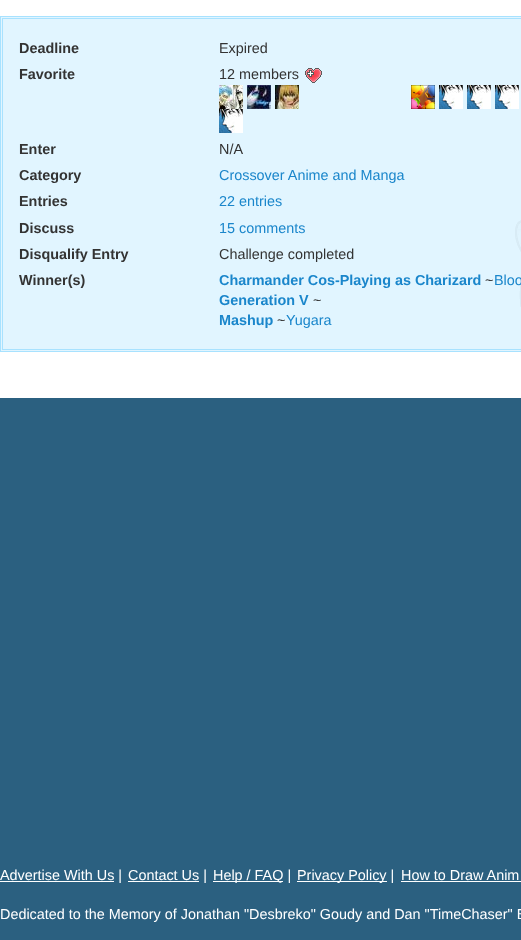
async function draw(canvas) {
  canvas.width = 521
  canvas.height = 940
  const ctx = canvas.getContext('2d')
  ctx.miterLimit = 4
  ctx.fontKerning = 'normal'
  async function loadImage(src) {
    const img = new Image()
    img.src = src
    await img.decode()
    return img
  }

  ctx.fillStyle = '#fff'
  ctx.fillRect(0, 0, 521, 940)
  ctx.fillStyle = '#e1f5ff'
  ctx.fillRect(1, 17, 520, 334)
  ctx.drawImage(await loadImage('image0.png'), 515, 220, 6, 87)
  ctx.strokeStyle = '#a8e2ff'
  ctx.strokeRect(0.5, 16.5, 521, 335)
  ctx.strokeRect(2.5, 18.5, 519, 331)
  ctx.font = 'bold 14.4px Liberation Sans'
  ctx.fillStyle = '#333'
  ctx.fillText('Deadline', 19, 53)
  ctx.font = '14.4px Liberation Sans'
  ctx.fillText('Expired', 219, 53)
  ctx.font = 'bold 14.4px Liberation Sans'
  ctx.fillText('Favorite', 19, 79)
  ctx.font = '14.4px Liberation Sans'
  ctx.fillText('12 members', 219, 79)
  ctx.drawImage(await loadImage('image1.png'), 305, 68, 17, 15)
  ctx.drawImage(await loadImage('image2.png'), 219, 85, 24, 24)
  ctx.drawImage(await loadImage('image3.png'), 247, 85, 24, 24)
  ctx.drawImage(await loadImage('image4.png'), 275, 85, 24, 24)
  ctx.drawImage(await loadImage('image5.png'), 411, 85, 24, 24)
  ctx.drawImage(await loadImage('image6.png'), 439, 85, 24, 24)
  ctx.drawImage(await loadImage('image6.png'), 467, 85, 24, 24)
  ctx.drawImage(await loadImage('image6.png'), 495, 85, 24, 24)
  ctx.drawImage(await loadImage('image6.png'), 219, 109, 24, 24)
  ctx.font = 'bold 14.4px Liberation Sans'
  ctx.fillText('Enter', 19, 154)
  ctx.font = '14.4px Liberation Sans'
  ctx.fillText('N/A', 219, 154)
  ctx.font = 'bold 14.4px Liberation Sans'
  ctx.fillText('Category', 19, 180)
  ctx.font = '14.4px Liberation Sans'
  ctx.fillStyle = '#1a86cb'
  ctx.fillText('Crossover Anime and Manga', 219, 180)
  ctx.font = 'bold 14.4px Liberation Sans'
  ctx.fillStyle = '#333'
  ctx.fillText('Entries', 19, 206)
  ctx.font = '14.4px Liberation Sans'
  ctx.fillStyle = '#1a86cb'
  ctx.fillText('22 entries', 219, 206)
  ctx.font = 'bold 14.4px Liberation Sans'
  ctx.fillStyle = '#333'
  ctx.fillText('Discuss', 19, 233)
  ctx.font = '14.4px Liberation Sans'
  ctx.fillStyle = '#1a86cb'
  ctx.fillText('15 comments', 219, 233)
  ctx.font = 'bold 14.4px Liberation Sans'
  ctx.fillStyle = '#333'
  ctx.fillText('Disqualify Entry', 19, 259)
  ctx.font = '14.4px Liberation Sans'
  ctx.fillText('Challenge completed', 219, 259)
  ctx.font = 'bold 14.4px Liberation Sans'
  ctx.fillText('Winner(s)', 19, 285)
  ctx.fillStyle = '#1a86cb'
  ctx.fillText('Charmander Cos-Playing as Charizard', 219, 285)
  ctx.font = '14.4px Liberation Sans'
  ctx.fillStyle = '#333'
  ctx.fillText('~', 485, 285)
  ctx.fillStyle = '#1a86cb'
  ctx.fillText('Bloo', 494, 285)
  ctx.font = 'bold 14.4px Liberation Sans'
  ctx.fillText('Generation V', 219, 305)
  ctx.font = '14.4px Liberation Sans'
  ctx.fillStyle = '#333'
  ctx.fillText('~', 313, 305)
  ctx.font = 'bold 14.4px Liberation Sans'
  ctx.fillStyle = '#1a86cb'
  ctx.fillText('Mashup', 219, 325)
  ctx.font = '14.4px Liberation Sans'
  ctx.fillStyle = '#333'
  ctx.fillText('~', 277, 325)
  ctx.fillStyle = '#1a86cb'
  ctx.fillText('Yugara', 286, 325)
  ctx.fillStyle = '#2b6080'
  ctx.fillRect(0, 398, 521, 542)
  ctx.fillStyle = '#fff'
  ctx.fillRect(0, 881, 114, 1)
  ctx.fillText('Advertise With Us |', 0, 880)
  ctx.fillRect(128, 881, 71, 1)
  ctx.fillText('Contact Us |', 128, 880)
  ctx.fillRect(213, 881, 70, 1)
  ctx.fillText('Help / FAQ |', 213, 880)
  ctx.fillRect(297, 881, 90, 1)
  ctx.fillText('Privacy Policy |', 297, 880)
  ctx.fillText('How to Draw Anim', 401, 880)
  ctx.fillRect(401, 881, 120, 1)
  ctx.fillText('Dedicated to the Memory of Jonathan "Desbreko" Goudy and Dan "TimeChaser" B', 0, 919)
}

draw(document.querySelector('canvas'))
